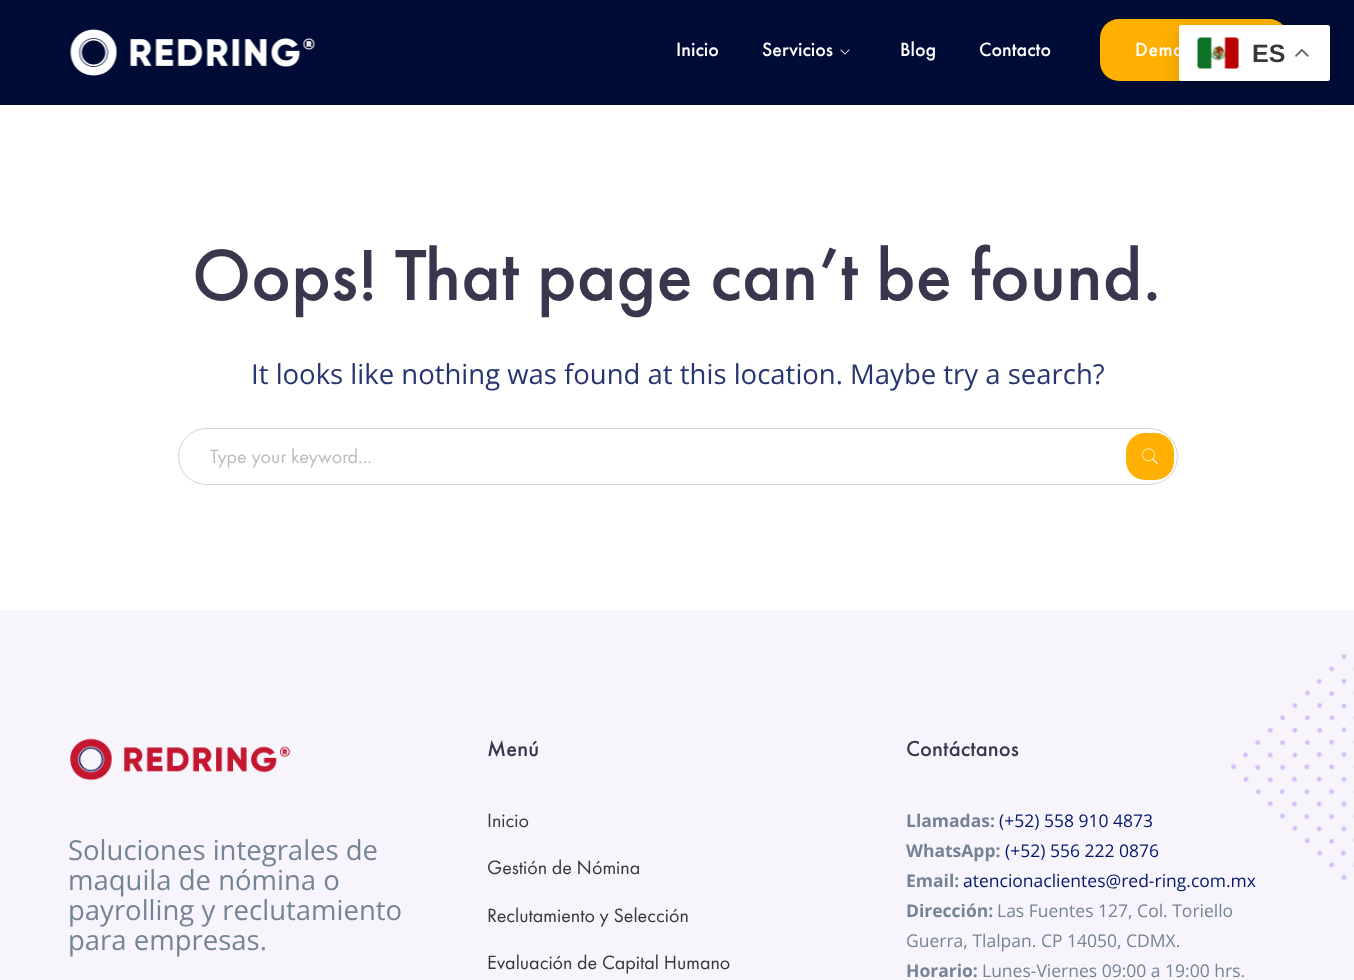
async function draw(canvas) {
  canvas.width = 1354
  canvas.height = 980
  const ctx = canvas.getContext('2d')
  ctx.miterLimit = 4
  ctx.fontKerning = 'normal'
  async function loadImage(src) {
    const img = new Image()
    img.src = src
    await img.decode()
    return img
  }

  ctx.fillStyle = '#fff'
  ctx.fillRect(0, 0, 1354, 980)
  ctx.fillStyle = '#000c35'
  ctx.fillRect(0, 0, 1354, 105)
  ctx.drawImage(await loadImage('image0.png'), 70, 29, 245, 47)
  ctx.font = '500 20px Futura PT'
  ctx.fillStyle = '#fff'
  ctx.fillText('Inicio', 676, 56)
  ctx.fillText('Servicios', 762, 56)
  ctx.drawImage(await loadImage('image1.png'), 840, 49, 10, 6)
  ctx.fillText('Blog', 900, 56)
  ctx.fillText('Contacto', 979, 56)
  ctx.fillStyle = '#ffb000'
  ctx.beginPath()
  ctx.roundRect(1100, 19, 188, 62, 19)
  ctx.fill()
  ctx.letterSpacing = '0.5px'
  ctx.fillStyle = '#fff'
  ctx.fillText('Demo', 1135, 56)
  ctx.letterSpacing = '0.1px'
  ctx.font = '500 75px Futura PT'
  ctx.fillStyle = '#39374d'
  ctx.fillText('Oops! That page can’t be found.', 192, 300)
  ctx.letterSpacing = '0px'
  ctx.font = '27.5px Open Sans'
  ctx.fillStyle = '#263470'
  ctx.fillText('It looks like nothing was found at this location. Maybe try a search?', 251, 384)
  ctx.beginPath()
  ctx.roundRect(178.5, 428.5, 999, 56, 28)
  ctx.strokeStyle = '#d4d4d5'
  ctx.stroke()
  ctx.font = '20px Futura PT'
  ctx.fillStyle = '#bbb'
  ctx.fillText('Type your keyword...', 210, 463)
  ctx.fillStyle = '#ffb000'
  ctx.beginPath()
  ctx.roundRect(1126, 433, 48, 47, 19)
  ctx.fill()
  ctx.drawImage(await loadImage('image2.png'), 1142, 448, 16, 16)
  ctx.fillStyle = '#f7f4fb'
  ctx.fillRect(0, 610, 1354, 370)
  ctx.drawImage(await loadImage('image3.png'), 1231, 654, 123, 226)
  ctx.drawImage(await loadImage('image4.png'), 70, 738, 220, 43)
  ctx.font = '27.5px Open Sans'
  ctx.fillStyle = '#748494'
  ctx.fillText('Soluciones integrales de', 68, 860)
  ctx.fillText('maquila de nómina o', 68, 890)
  ctx.fillText('payrolling y reclutamiento', 68, 920)
  ctx.fillText('para empresas.', 68, 950)
  ctx.letterSpacing = '0.1px'
  ctx.font = '500 22.5px Futura PT'
  ctx.fillStyle = '#39374d'
  ctx.fillText('Menú', 487, 756)
  ctx.letterSpacing = '0px'
  ctx.font = '20px Futura PT'
  ctx.fillStyle = '#373737'
  ctx.fillText('Inicio', 487, 827)
  ctx.fillText('Gestión de Nómina', 487, 874)
  ctx.fillText('Reclutamiento y Selección', 487, 922)
  ctx.fillText('Evaluación de Capital Humano', 487, 969)
  ctx.letterSpacing = '0.1px'
  ctx.font = '500 22.5px Futura PT'
  ctx.fillStyle = '#39374d'
  ctx.fillText('Contáctanos', 906, 756)
  ctx.letterSpacing = '0px'
  ctx.font = 'bold 17.5px Open Sans'
  ctx.fillStyle = '#748494'
  ctx.fillText('Llamadas:', 906, 827)
  ctx.font = '17.5px Open Sans'
  ctx.fillStyle = '#00176a'
  ctx.fillText('(+52) 558 910 4873', 999, 827)
  ctx.font = 'bold 17.5px Open Sans'
  ctx.fillStyle = '#748494'
  ctx.fillText('WhatsApp:', 906, 857)
  ctx.font = '17.5px Open Sans'
  ctx.fillStyle = '#00176a'
  ctx.fillText('(+52) 556 222 0876', 1005, 857)
  ctx.font = 'bold 17.5px Open Sans'
  ctx.fillStyle = '#748494'
  ctx.fillText('Email:', 906, 887)
  ctx.font = '17.5px Open Sans'
  ctx.fillStyle = '#00176a'
  ctx.fillText('atencionaclientes@red-ring.com.mx', 963, 887)
  ctx.font = 'bold 17.5px Open Sans'
  ctx.fillStyle = '#748494'
  ctx.fillText('Dirección:', 906, 917)
  ctx.font = '17.5px Open Sans'
  ctx.fillText('Las Fuentes 127, Col. Toriello', 997, 917)
  ctx.fillText('Guerra, Tlalpan. CP 14050, CDMX.', 906, 947)
  ctx.font = 'bold 17.5px Open Sans'
  ctx.fillText('Horario:', 906, 977)
  ctx.font = '17.5px Open Sans'
  ctx.fillText('Lunes-Viernes 09:00 a 19:00 hrs.', 982, 977)
  ctx.fillStyle = '#00000026'
  ctx.filter = 'blur(9.5px)'
  ctx.beginPath()
  ctx.roundRect(1179, 31, 151, 57, 2.5)
  ctx.fill()
  ctx.filter = 'none'
  ctx.fillStyle = '#fff'
  ctx.beginPath()
  ctx.roundRect(1179, 25, 151, 56, 2.5)
  ctx.fill()
  ctx.drawImage(await loadImage('image5.png'), 1197, 37, 42, 32)
  ctx.font = 'bold 25px Liberation Sans'
  ctx.fillStyle = '#373737'
  ctx.fillText('ES', 1252, 62)
  ctx.drawImage(await loadImage('image6.png'), 1295, 48, 14, 9)
}

draw(document.querySelector('canvas'))
